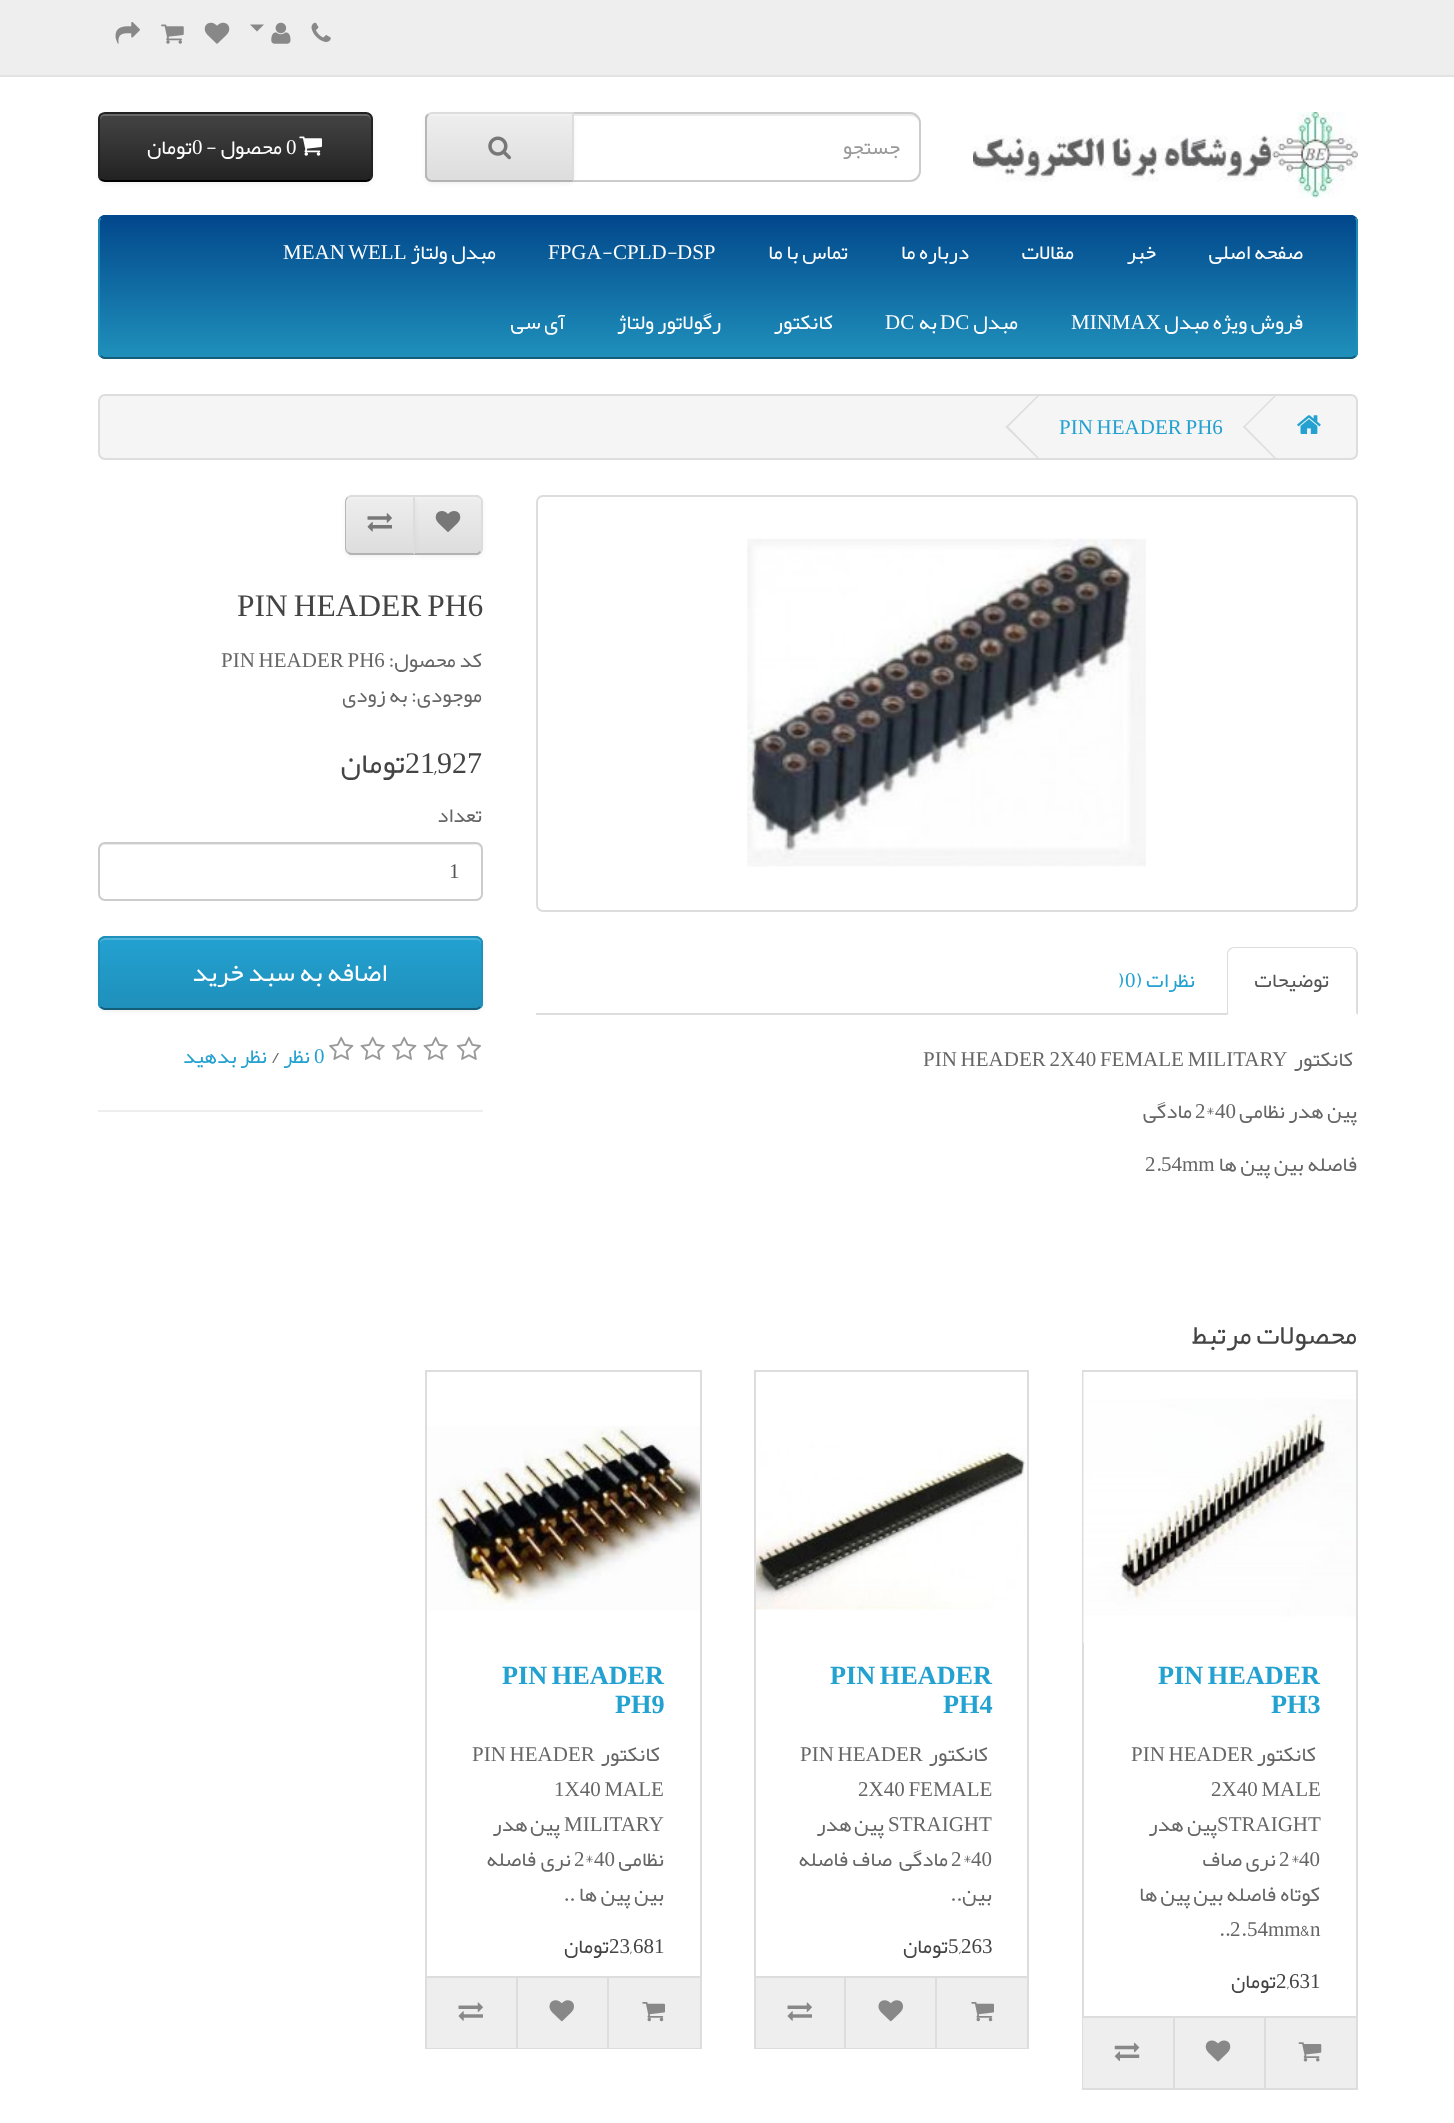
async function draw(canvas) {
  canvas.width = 1454
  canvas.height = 2123
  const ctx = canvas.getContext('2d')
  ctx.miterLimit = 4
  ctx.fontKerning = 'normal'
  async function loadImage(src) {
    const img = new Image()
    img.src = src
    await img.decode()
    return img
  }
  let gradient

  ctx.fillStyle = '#fff'
  ctx.fillRect(0, 0, 1454, 2123)
  ctx.fillStyle = '#eee'
  ctx.fillRect(0, 0, 1454, 75)
  ctx.fillStyle = '#e2e2e2'
  ctx.fillRect(0, 75, 1454, 2)
  ctx.drawImage(await loadImage('image0.png'), 311, 22, 20, 20)
  ctx.drawImage(await loadImage('image1.png'), 271, 22, 20, 22)
  ctx.fillStyle = '#888'
  ctx.beginPath()
  ctx.moveTo(250, 24.5)
  ctx.lineTo(264, 24.5)
  ctx.lineTo(257, 31.5)
  ctx.closePath()
  ctx.fill()
  ctx.drawImage(await loadImage('image2.png'), 204, 22, 26, 22)
  ctx.drawImage(await loadImage('image3.png'), 161, 24, 23, 20)
  ctx.drawImage(await loadImage('image4.png'), 115, 22, 25, 22)
  ctx.drawImage(await loadImage('image5.png'), 973, 112, 385, 86)
  ctx.fillStyle = '#ececec'
  ctx.beginPath()
  ctx.moveTo(574, 116)
  ctx.lineTo(910, 116)
  ctx.bezierCurveTo(915, 116, 919, 119, 919, 124)
  ctx.bezierCurveTo(919, 119, 916, 114, 910, 114)
  ctx.lineTo(574, 114)
  ctx.closePath()
  ctx.fill()
  ctx.beginPath()
  ctx.roundRect(573, 113, 347, 68, [0, 10, 10, 0])
  ctx.strokeStyle = '#ccc'
  ctx.lineWidth = 2
  ctx.stroke()
  ctx.direction = 'rtl'
  ctx.font = '21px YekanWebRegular'
  ctx.fillStyle = '#999'
  ctx.fillText('جستجو', 900, 154)
  ctx.fillStyle = '#0000000d'
  ctx.filter = 'blur(2px)'
  ctx.beginPath()
  ctx.roundRect(425, 114, 149, 70, 7)
  ctx.fill()
  ctx.filter = 'none'
  ctx.save()
  ctx.beginPath()
  ctx.roundRect(425, 112, 149, 70, [7, 0, 0, 7])
  ctx.clip()
  gradient = ctx.createLinearGradient(500, 114, 500, 180)
  gradient.addColorStop(0, '#eee')
  gradient.addColorStop(1, '#ddd')
  ctx.fillStyle = gradient
  ctx.fillRect(425, 114, 147, 66)
  ctx.restore()
  ctx.fillStyle = '#f1f1f1'
  ctx.beginPath()
  ctx.moveTo(432, 116)
  ctx.lineTo(572, 116)
  ctx.lineTo(572, 114)
  ctx.lineTo(432, 114)
  ctx.bezierCurveTo(429, 114, 427, 116, 427, 119)
  ctx.lineTo(427, 121)
  ctx.bezierCurveTo(427, 118, 429, 116, 432, 116)
  ctx.closePath()
  ctx.fill()
  ctx.fillStyle = '#ddd'
  ctx.beginPath()
  ctx.moveTo(432, 112)
  ctx.bezierCurveTo(430, 112, 428, 113, 427, 114)
  ctx.lineTo(429, 115)
  ctx.lineTo(431, 114)
  ctx.lineTo(572, 114)
  ctx.lineTo(574, 112)
  ctx.closePath()
  ctx.fill()
  ctx.beginPath()
  ctx.moveTo(574, 112)
  ctx.lineTo(572, 114)
  ctx.lineTo(572, 180)
  ctx.lineTo(574, 182)
  ctx.closePath()
  ctx.fill()
  ctx.fillStyle = '#b3b3b3'
  ctx.beginPath()
  ctx.moveTo(574, 182)
  ctx.lineTo(572, 180)
  ctx.lineTo(431, 180)
  ctx.lineTo(429, 179)
  ctx.lineTo(427, 180)
  ctx.bezierCurveTo(428, 181, 430, 182, 432, 182)
  ctx.closePath()
  ctx.fill()
  ctx.fillStyle = '#b7b7b7'
  ctx.beginPath()
  ctx.moveTo(425, 117)
  ctx.lineTo(427, 114)
  ctx.lineTo(429, 115)
  ctx.bezierCurveTo(428, 116, 427, 117, 427, 119)
  ctx.lineTo(427, 175)
  ctx.bezierCurveTo(427, 177, 428, 178, 429, 179)
  ctx.lineTo(427, 180)
  ctx.lineTo(425, 177)
  ctx.closePath()
  ctx.fill()
  ctx.drawImage(await loadImage('image6.png'), 488, 136, 23, 24)
  ctx.fillStyle = '#0000000d'
  ctx.filter = 'blur(2px)'
  ctx.beginPath()
  ctx.roundRect(98, 114, 275, 70, 7)
  ctx.fill()
  ctx.filter = 'none'
  ctx.save()
  ctx.beginPath()
  ctx.roundRect(98, 112, 275, 70, 7)
  ctx.clip()
  gradient = ctx.createLinearGradient(235, 114, 235, 180)
  gradient.addColorStop(0, '#444')
  gradient.addColorStop(1, '#222')
  ctx.fillStyle = gradient
  ctx.fillRect(98, 114, 275, 66)
  ctx.restore()
  ctx.fillStyle = '#696969'
  ctx.beginPath()
  ctx.moveTo(105, 116)
  ctx.lineTo(366, 116)
  ctx.bezierCurveTo(369, 116, 371, 118, 371, 121)
  ctx.lineTo(371, 119)
  ctx.bezierCurveTo(371, 116, 369, 114, 366, 114)
  ctx.lineTo(105, 114)
  ctx.bezierCurveTo(102, 114, 100, 116, 100, 119)
  ctx.lineTo(100, 121)
  ctx.bezierCurveTo(100, 118, 102, 116, 105, 116)
  ctx.closePath()
  ctx.fill()
  ctx.beginPath()
  ctx.moveTo(370, 179.5)
  ctx.bezierCurveTo(369, 180.5, 367.5, 181, 366, 181)
  ctx.lineTo(105, 181)
  ctx.bezierCurveTo(103.5, 181, 102, 180.5, 100.5, 179.5)
  ctx.strokeStyle = '#000'
  ctx.lineWidth = 1.8
  ctx.stroke()
  ctx.beginPath()
  ctx.moveTo(100.5, 179.5)
  ctx.bezierCurveTo(99.5, 178, 99, 176.5, 99, 175)
  ctx.lineTo(99, 119)
  ctx.bezierCurveTo(99, 117.5, 99.5, 116, 100.5, 114.5)
  ctx.bezierCurveTo(102, 113.5, 103.5, 113, 105, 113)
  ctx.lineTo(366, 113)
  ctx.bezierCurveTo(367.5, 113, 369, 113.5, 370, 114.5)
  ctx.bezierCurveTo(371, 116, 372, 117.5, 372, 119)
  ctx.lineTo(372, 175)
  ctx.bezierCurveTo(372, 176.5, 371, 178, 370, 179.5)
  ctx.strokeStyle = '#222'
  ctx.stroke()
  ctx.drawImage(await loadImage('image7.png'), 299, 136, 23, 20)
  ctx.direction = 'ltr'
  ctx.font = '21px Liberation Serif'
  ctx.fillStyle = '#fff'
  ctx.fillText('0', 286, 154)
  ctx.direction = 'rtl'
  ctx.font = '21px YekanWebRegular'
  ctx.fillText('محصول -', 282, 154)
  ctx.direction = 'ltr'
  ctx.font = '21px Liberation Serif'
  ctx.fillText('0', 192, 154)
  ctx.direction = 'rtl'
  ctx.font = '21px YekanWebRegular'
  ctx.fillText('تومان', 192, 154)
  ctx.fillStyle = '#02488c'
  ctx.beginPath()
  ctx.roundRect(98, 215, 1260, 144, 7)
  ctx.fill()
  ctx.save()
  ctx.beginPath()
  ctx.roundRect(98, 215, 1260, 144, 7)
  ctx.clip()
  gradient = ctx.createLinearGradient(728, 217, 728, 357)
  gradient.addColorStop(0, '#02488c')
  gradient.addColorStop(1, '#1f90bb')
  ctx.fillStyle = gradient
  ctx.fillRect(98, 217, 1260, 140)
  ctx.restore()
  ctx.beginPath()
  ctx.moveTo(100.5, 218)
  ctx.bezierCurveTo(102, 217, 103.5, 216, 105, 216)
  ctx.lineTo(1351, 216)
  ctx.bezierCurveTo(1352.5, 216, 1354, 217, 1355.5, 218)
  ctx.strokeStyle = '#02488c'
  ctx.stroke()
  ctx.beginPath()
  ctx.moveTo(1355.5, 218)
  ctx.bezierCurveTo(1356.5, 219, 1357, 220, 1357, 221.5)
  ctx.lineTo(1357, 352.5)
  ctx.lineTo(1355.5, 356)
  ctx.strokeStyle = '#1f90bb'
  ctx.stroke()
  ctx.beginPath()
  ctx.moveTo(1355.5, 356)
  ctx.bezierCurveTo(1354, 357, 1352.5, 358, 1351, 358)
  ctx.lineTo(105, 358)
  ctx.bezierCurveTo(103.5, 358, 102, 357, 100.5, 356)
  ctx.strokeStyle = '#145e7a'
  ctx.stroke()
  ctx.beginPath()
  ctx.moveTo(100.5, 356)
  ctx.bezierCurveTo(99.5, 355, 99, 354, 99, 352.5)
  ctx.lineTo(99, 221.5)
  ctx.lineTo(100.5, 218)
  ctx.strokeStyle = '#1f90bb'
  ctx.stroke()
  ctx.fillStyle = '#fff'
  ctx.fillText('صفحه اصلی', 1303, 259)
  ctx.fillText('خبر', 1156, 259)
  ctx.fillText('مقالات', 1074, 259)
  ctx.fillText('درباره ما', 969, 259)
  ctx.fillText('تماس با ما', 848, 259)
  ctx.direction = 'ltr'
  ctx.font = '21px Liberation Serif'
  ctx.fillText('DSP', 677, 259)
  ctx.font = '21px YekanWebRegular'
  ctx.fillText('-', 667, 259)
  ctx.font = '21px Liberation Serif'
  ctx.fillText('CPLD', 613, 259)
  ctx.font = '21px YekanWebRegular'
  ctx.fillText('-', 602, 259)
  ctx.font = '21px Liberation Serif'
  ctx.fillText('FPGA', 548, 259)
  ctx.direction = 'rtl'
  ctx.font = '21px YekanWebRegular'
  ctx.fillText('مبدل ولتاژ', 496, 259)
  ctx.wordSpacing = '-1.5px'
  ctx.direction = 'ltr'
  ctx.font = '21px Liberation Serif'
  ctx.fillText('MEAN WELL', 283, 259)
  ctx.wordSpacing = '0px'
  ctx.direction = 'rtl'
  ctx.font = '21px YekanWebRegular'
  ctx.fillText('فروش ویژه مبدل', 1303, 329)
  ctx.direction = 'ltr'
  ctx.font = '21px Liberation Serif'
  ctx.fillText('MINMAX', 1071, 329)
  ctx.direction = 'rtl'
  ctx.font = '21px YekanWebRegular'
  ctx.fillText('مبدل', 1018, 329)
  ctx.direction = 'ltr'
  ctx.font = '21px Liberation Serif'
  ctx.fillText('DC', 940, 329)
  ctx.direction = 'rtl'
  ctx.font = '21px YekanWebRegular'
  ctx.fillText('به', 937, 329)
  ctx.direction = 'ltr'
  ctx.font = '21px Liberation Serif'
  ctx.fillText('DC', 885, 329)
  ctx.direction = 'rtl'
  ctx.font = '21px YekanWebRegular'
  ctx.fillText('کانکتور', 833, 329)
  ctx.fillText('رگولاتور ولتاژ', 721, 329)
  ctx.fillText('آی سی', 565, 329)
  ctx.fillStyle = '#f5f5f5'
  ctx.beginPath()
  ctx.roundRect(99, 395, 1258, 64, 6)
  ctx.fill()
  ctx.strokeStyle = '#ddd'
  ctx.lineWidth = 2
  ctx.stroke()
  ctx.drawImage(await loadImage('image8.png'), 1297, 415, 24, 19)
  ctx.fillStyle = '#ddd'
  ctx.beginPath()
  ctx.moveTo(1244, 425.5)
  ctx.lineTo(1276, 458)
  ctx.lineTo(1275, 459)
  ctx.lineTo(1243, 427)
  ctx.closePath()
  ctx.fill()
  ctx.beginPath()
  ctx.moveTo(1275, 395)
  ctx.lineTo(1276, 396)
  ctx.lineTo(1244, 428)
  ctx.lineTo(1243, 427)
  ctx.closePath()
  ctx.fill()
  ctx.wordSpacing = '-1.5px'
  ctx.direction = 'ltr'
  ctx.font = '21px Liberation Serif'
  ctx.fillStyle = '#23a1d1'
  ctx.fillText('PIN HEADER PH6', 1059, 434)
  ctx.fillStyle = '#ddd'
  ctx.beginPath()
  ctx.moveTo(1007, 425.5)
  ctx.lineTo(1039, 458)
  ctx.lineTo(1038, 459)
  ctx.lineTo(1005.5, 427)
  ctx.closePath()
  ctx.fill()
  ctx.beginPath()
  ctx.moveTo(1038, 395)
  ctx.lineTo(1039, 396)
  ctx.lineTo(1007, 428)
  ctx.lineTo(1005.5, 427)
  ctx.closePath()
  ctx.fill()
  ctx.beginPath()
  ctx.roundRect(537, 496, 820, 415, 6)
  ctx.stroke()
  ctx.drawImage(await loadImage('image9.png'), 747, 538, 399, 329)
  ctx.fillRect(536, 1013, 691, 2)
  ctx.beginPath()
  ctx.moveTo(1234, 947)
  ctx.bezierCurveTo(1232, 947, 1230, 948, 1229, 949)
  ctx.lineTo(1230, 950)
  ctx.bezierCurveTo(1231, 949, 1232, 948, 1234, 948)
  ctx.lineTo(1351, 948)
  ctx.bezierCurveTo(1353, 948, 1354, 949, 1355, 950)
  ctx.lineTo(1356, 949)
  ctx.bezierCurveTo(1355, 948, 1353, 947, 1351, 947)
  ctx.closePath()
  ctx.fill()
  ctx.beginPath()
  ctx.moveTo(1356, 949)
  ctx.bezierCurveTo(1357, 950, 1358, 952, 1358, 954)
  ctx.lineTo(1358, 1015)
  ctx.lineTo(1356, 1013)
  ctx.lineTo(1356, 954)
  ctx.bezierCurveTo(1356, 953, 1356, 951, 1355, 950)
  ctx.closePath()
  ctx.fill()
  ctx.beginPath()
  ctx.moveTo(1229, 949)
  ctx.bezierCurveTo(1228, 950, 1227, 952, 1227, 954)
  ctx.lineTo(1227, 1015)
  ctx.lineTo(1229, 1013)
  ctx.lineTo(1228, 1013)
  ctx.lineTo(1228, 954)
  ctx.bezierCurveTo(1228, 952, 1229, 951, 1230, 950)
  ctx.closePath()
  ctx.fill()
  ctx.wordSpacing = '0px'
  ctx.direction = 'rtl'
  ctx.font = '21px YekanWebRegular'
  ctx.fillStyle = '#555'
  ctx.fillText('توضیحات', 1329, 987)
  ctx.fillStyle = '#23a1d1'
  ctx.fillText('نظرات (', 1195, 987)
  ctx.direction = 'ltr'
  ctx.font = '21px Liberation Serif'
  ctx.fillText('0', 1125, 987)
  ctx.font = '21px YekanWebRegular'
  ctx.fillText(')', 1118, 987)
  ctx.direction = 'rtl'
  ctx.fillStyle = '#666'
  ctx.fillText('کانکتور', 1353, 1066)
  ctx.wordSpacing = '-1.5px'
  ctx.direction = 'ltr'
  ctx.font = '21px Liberation Serif'
  ctx.fillText('PIN HEADER 2X40 FEMALE MILITARY', 923, 1066)
  ctx.wordSpacing = '0px'
  ctx.direction = 'rtl'
  ctx.font = '21px YekanWebRegular'
  ctx.fillText('پین هدر نظامی', 1357, 1118)
  ctx.direction = 'ltr'
  ctx.font = '21px Liberation Serif'
  ctx.fillText('40', 1215, 1118)
  ctx.font = '21px YekanWebRegular'
  ctx.fillText('*', 1205, 1118)
  ctx.font = '21px Liberation Serif'
  ctx.fillText('2', 1195, 1118)
  ctx.direction = 'rtl'
  ctx.font = '21px YekanWebRegular'
  ctx.fillText('مادگی', 1192, 1118)
  ctx.fillText('فاصله بین پین ها', 1357, 1171)
  ctx.direction = 'ltr'
  ctx.font = '21px Liberation Serif'
  ctx.fillText('54mm', 1161, 1171)
  ctx.font = '21px YekanWebRegular'
  ctx.fillText('.', 1156, 1171)
  ctx.font = '21px Liberation Serif'
  ctx.fillText('2', 1145, 1171)
  ctx.fillStyle = '#0000000d'
  ctx.filter = 'blur(2px)'
  ctx.beginPath()
  ctx.roundRect(413, 497, 70, 60, 7)
  ctx.fill()
  ctx.filter = 'none'
  ctx.save()
  ctx.beginPath()
  ctx.roundRect(413, 495, 70, 60, [0, 7, 7, 0])
  ctx.clip()
  gradient = ctx.createLinearGradient(448, 497, 448, 553)
  gradient.addColorStop(0, '#eee')
  gradient.addColorStop(1, '#ddd')
  ctx.fillStyle = gradient
  ctx.fillRect(415, 497, 68, 56)
  ctx.restore()
  ctx.fillStyle = '#f1f1f1'
  ctx.beginPath()
  ctx.moveTo(415, 499)
  ctx.lineTo(476, 499)
  ctx.bezierCurveTo(479, 499, 481, 501, 481, 504)
  ctx.lineTo(481, 502)
  ctx.bezierCurveTo(481, 499, 479, 497, 476, 497)
  ctx.lineTo(415, 497)
  ctx.closePath()
  ctx.fill()
  ctx.fillStyle = '#ddd'
  ctx.beginPath()
  ctx.moveTo(415, 497)
  ctx.lineTo(413, 495)
  ctx.lineTo(478, 495)
  ctx.lineTo(481, 497)
  ctx.lineTo(480, 499)
  ctx.bezierCurveTo(479, 498, 478, 497, 476, 497)
  ctx.closePath()
  ctx.fill()
  ctx.beginPath()
  ctx.moveTo(483, 548)
  ctx.lineTo(483, 502)
  ctx.bezierCurveTo(483, 500, 482, 498, 481, 497)
  ctx.lineTo(480, 499)
  ctx.bezierCurveTo(481, 499, 481, 501, 481, 502)
  ctx.lineTo(481, 548)
  ctx.bezierCurveTo(481, 549, 481, 551, 480, 551)
  ctx.lineTo(481, 553)
  ctx.bezierCurveTo(482, 552, 483, 550, 483, 548)
  ctx.closePath()
  ctx.fill()
  ctx.fillStyle = '#b3b3b3'
  ctx.beginPath()
  ctx.moveTo(478, 555)
  ctx.lineTo(413, 555)
  ctx.lineTo(415, 553)
  ctx.lineTo(477, 553)
  ctx.lineTo(480, 551)
  ctx.lineTo(481, 553)
  ctx.closePath()
  ctx.fill()
  ctx.drawImage(await loadImage('image10.png'), 435, 511, 26, 21)
  ctx.fillStyle = '#0000000d'
  ctx.filter = 'blur(2px)'
  ctx.beginPath()
  ctx.roundRect(345, 497, 70, 60, 7)
  ctx.fill()
  ctx.filter = 'none'
  ctx.save()
  ctx.beginPath()
  ctx.roundRect(345, 495, 70, 60, [7, 0, 0, 7])
  ctx.clip()
  gradient = ctx.createLinearGradient(380, 497, 380, 553)
  gradient.addColorStop(0, '#eee')
  gradient.addColorStop(1, '#ddd')
  ctx.fillStyle = gradient
  ctx.fillRect(345, 497, 68, 56)
  ctx.restore()
  ctx.fillStyle = '#f1f1f1'
  ctx.beginPath()
  ctx.moveTo(352, 499)
  ctx.lineTo(413, 499)
  ctx.lineTo(413, 497)
  ctx.lineTo(352, 497)
  ctx.bezierCurveTo(350, 497, 347, 499, 347, 501)
  ctx.bezierCurveTo(348, 500, 350, 499, 352, 499)
  ctx.closePath()
  ctx.fill()
  ctx.fillStyle = '#ddd'
  ctx.beginPath()
  ctx.moveTo(352, 497)
  ctx.bezierCurveTo(350, 497, 349, 498, 348, 498)
  ctx.lineTo(347, 497)
  ctx.lineTo(350, 495)
  ctx.lineTo(415, 495)
  ctx.lineTo(413, 497)
  ctx.closePath()
  ctx.fill()
  ctx.beginPath()
  ctx.moveTo(415, 495)
  ctx.lineTo(413, 497)
  ctx.lineTo(413, 553)
  ctx.lineTo(415, 555)
  ctx.closePath()
  ctx.fill()
  ctx.fillStyle = '#b3b3b3'
  ctx.beginPath()
  ctx.moveTo(415, 555)
  ctx.lineTo(350, 555)
  ctx.lineTo(347, 553)
  ctx.lineTo(348, 552)
  ctx.bezierCurveTo(349, 552, 350, 553, 352, 553)
  ctx.lineTo(413, 553)
  ctx.closePath()
  ctx.fill()
  ctx.fillStyle = '#b7b7b7'
  ctx.beginPath()
  ctx.moveTo(347, 553)
  ctx.bezierCurveTo(346, 552, 345, 550, 345, 548)
  ctx.lineTo(345, 502)
  ctx.bezierCurveTo(345, 500, 346, 498, 347, 497)
  ctx.lineTo(348, 498)
  ctx.bezierCurveTo(347, 499, 346, 500, 346, 502)
  ctx.lineTo(346, 548)
  ctx.bezierCurveTo(346, 550, 347, 551, 348, 552)
  ctx.closePath()
  ctx.fill()
  ctx.drawImage(await loadImage('image11.png'), 367, 513, 25, 19)
  ctx.wordSpacing = '-2px'
  ctx.font = '31.5px Liberation Serif'
  ctx.fillStyle = '#444'
  ctx.fillText('PIN HEADER PH6', 237, 616)
  ctx.wordSpacing = '0px'
  ctx.direction = 'rtl'
  ctx.font = '21px YekanWebRegular'
  ctx.fillStyle = '#666'
  ctx.fillText('کد محصول:', 482, 667)
  ctx.wordSpacing = '-1.5px'
  ctx.direction = 'ltr'
  ctx.font = '21px Liberation Serif'
  ctx.fillText('PIN HEADER PH6', 221, 667)
  ctx.wordSpacing = '0px'
  ctx.direction = 'rtl'
  ctx.font = '21px YekanWebRegular'
  ctx.fillText('موجودی: به زودی', 482, 702)
  ctx.direction = 'ltr'
  ctx.font = '30px Liberation Serif'
  ctx.fillStyle = '#444'
  ctx.fillText('927', 437, 773)
  ctx.font = '30px YekanWebRegular'
  ctx.fillText(',', 434, 773)
  ctx.font = '30px Liberation Serif'
  ctx.fillText('21', 405, 773)
  ctx.direction = 'rtl'
  ctx.font = '30px YekanWebRegular'
  ctx.fillText('تومان', 405, 773)
  ctx.font = '21px YekanWebRegular'
  ctx.fillStyle = '#666'
  ctx.fillText('تعداد', 482, 822)
  ctx.fillStyle = '#ececec'
  ctx.beginPath()
  ctx.moveTo(105, 845)
  ctx.lineTo(476, 845)
  ctx.bezierCurveTo(479, 845, 481, 848, 481, 850)
  ctx.lineTo(481, 849)
  ctx.bezierCurveTo(481, 846, 479, 844, 476, 844)
  ctx.lineTo(105, 844)
  ctx.bezierCurveTo(102, 844, 100, 846, 100, 849)
  ctx.lineTo(100, 850)
  ctx.bezierCurveTo(100, 848, 102, 845, 105, 845)
  ctx.closePath()
  ctx.fill()
  ctx.beginPath()
  ctx.roundRect(99, 843, 383, 57, 6)
  ctx.strokeStyle = '#ccc'
  ctx.stroke()
  ctx.direction = 'ltr'
  ctx.font = '21px Liberation Serif'
  ctx.fillStyle = '#555'
  ctx.fillText('1', 449, 878)
  ctx.fillStyle = '#0000000d'
  ctx.filter = 'blur(2px)'
  ctx.beginPath()
  ctx.roundRect(98, 938, 385, 74, 7)
  ctx.fill()
  ctx.filter = 'none'
  ctx.fillStyle = '#229ac8'
  ctx.beginPath()
  ctx.roundRect(98, 936, 385, 74, 7)
  ctx.fill()
  ctx.save()
  ctx.beginPath()
  ctx.roundRect(98, 936, 385, 74, 7)
  ctx.clip()
  gradient = ctx.createLinearGradient(291, 938, 291, 1008)
  gradient.addColorStop(0, '#23a1d1')
  gradient.addColorStop(1, '#1f90bb')
  ctx.fillStyle = gradient
  ctx.fillRect(98, 938, 385, 70)
  ctx.restore()
  ctx.fillStyle = '#4fb4da'
  ctx.beginPath()
  ctx.moveTo(105, 940)
  ctx.lineTo(476, 940)
  ctx.bezierCurveTo(479, 940, 481, 942, 481, 945)
  ctx.lineTo(481, 943)
  ctx.bezierCurveTo(481, 940, 479, 938, 476, 938)
  ctx.lineTo(105, 938)
  ctx.bezierCurveTo(102, 938, 100, 940, 100, 943)
  ctx.lineTo(100, 945)
  ctx.bezierCurveTo(100, 942, 102, 940, 105, 940)
  ctx.closePath()
  ctx.fill()
  ctx.beginPath()
  ctx.moveTo(480.5, 1007)
  ctx.bezierCurveTo(479, 1008, 477.5, 1009, 476, 1009)
  ctx.lineTo(105, 1009)
  ctx.bezierCurveTo(103.5, 1009, 102, 1008, 100.5, 1007)
  ctx.strokeStyle = '#145e7a'
  ctx.lineWidth = 1.8
  ctx.stroke()
  ctx.beginPath()
  ctx.moveTo(100.5, 1007)
  ctx.bezierCurveTo(99.5, 1006, 99, 1004.5, 99, 1003)
  ctx.lineTo(99, 943)
  ctx.bezierCurveTo(99, 941.5, 99.5, 940, 100.5, 939)
  ctx.bezierCurveTo(102, 938, 103.5, 937, 105, 937)
  ctx.lineTo(476, 937)
  ctx.bezierCurveTo(477.5, 937, 479, 938, 480.5, 939)
  ctx.bezierCurveTo(481.5, 940, 482, 941.5, 482, 943)
  ctx.lineTo(482, 1003)
  ctx.bezierCurveTo(482, 1004.5, 481.5, 1006, 480.5, 1007)
  ctx.strokeStyle = '#1f90bb'
  ctx.stroke()
  ctx.direction = 'rtl'
  ctx.font = '26.25px YekanWebRegular'
  ctx.fillStyle = '#fff'
  ctx.fillText('اضافه به سبد خرید', 387, 981)
  ctx.drawImage(await loadImage('image12.png'), 456, 1036, 25, 24)
  ctx.drawImage(await loadImage('image13.png'), 423, 1036, 25, 24)
  ctx.drawImage(await loadImage('image14.png'), 392, 1036, 25, 24)
  ctx.drawImage(await loadImage('image13.png'), 360, 1036, 25, 24)
  ctx.drawImage(await loadImage('image14.png'), 329, 1036, 25, 24)
  ctx.direction = 'ltr'
  ctx.font = '21px Liberation Serif'
  ctx.fillStyle = '#23a1d1'
  ctx.fillText('0', 314, 1063)
  ctx.direction = 'rtl'
  ctx.font = '21px YekanWebRegular'
  ctx.fillText('نظر', 310, 1063)
  ctx.direction = 'ltr'
  ctx.fillStyle = '#666'
  ctx.fillText('/', 271, 1063)
  ctx.direction = 'rtl'
  ctx.fillStyle = '#23a1d1'
  ctx.fillText('نظر بدهید', 267, 1063)
  ctx.fillStyle = '#eee'
  ctx.fillRect(98, 1110, 385, 2)
  ctx.font = '28px YekanWebRegular'
  ctx.fillStyle = '#444'
  ctx.fillText('محصولات مرتبط', 1357, 1344)
  ctx.strokeStyle = '#ddd'
  ctx.lineWidth = 2
  ctx.strokeRect(1083, 1371, 274, 718)
  ctx.drawImage(await loadImage('image15.png'), 1083, 1372, 273, 272)
  ctx.wordSpacing = '-2px'
  ctx.direction = 'ltr'
  ctx.font = 'bold 26.25px Liberation Serif'
  ctx.fillStyle = '#23a1d1'
  ctx.fillText('PIN HEADER', 1158, 1684)
  ctx.wordSpacing = '0px'
  ctx.fillText('PH3', 1271, 1713)
  ctx.direction = 'rtl'
  ctx.font = '21px YekanWebRegular'
  ctx.fillStyle = '#666'
  ctx.fillText('کانکتور', 1316, 1761)
  ctx.wordSpacing = '-1.5px'
  ctx.direction = 'ltr'
  ctx.font = '21px Liberation Serif'
  ctx.fillText('PIN HEADER', 1131, 1761)
  ctx.fillText('2X40 MALE', 1211, 1796)
  ctx.wordSpacing = '0px'
  ctx.fillText('STRAIGHT', 1217, 1831)
  ctx.direction = 'rtl'
  ctx.font = '21px YekanWebRegular'
  ctx.fillText('پین هدر', 1217, 1831)
  ctx.direction = 'ltr'
  ctx.font = '21px Liberation Serif'
  ctx.fillText('40', 1299, 1866)
  ctx.font = '21px YekanWebRegular'
  ctx.fillText('*', 1290, 1866)
  ctx.font = '21px Liberation Serif'
  ctx.fillText('2', 1279, 1866)
  ctx.direction = 'rtl'
  ctx.font = '21px YekanWebRegular'
  ctx.fillText('نری صاف', 1276, 1866)
  ctx.fillText('کوتاه', 1320, 1901)
  ctx.wordSpacing = '-0.5px'
  ctx.fillText('فاصله بین پین ها', 1276, 1901)
  ctx.wordSpacing = '0px'
  ctx.direction = 'ltr'
  ctx.font = '21px Liberation Serif'
  ctx.fillText('n', 1310, 1936)
  ctx.font = '21px YekanWebRegular'
  ctx.fillText('&', 1300, 1936)
  ctx.font = '21px Liberation Serif'
  ctx.fillText('54mm', 1247, 1936)
  ctx.font = '21px YekanWebRegular'
  ctx.fillText('.', 1241, 1936)
  ctx.font = '21px Liberation Serif'
  ctx.fillText('2', 1230, 1936)
  ctx.font = '21px YekanWebRegular'
  ctx.fillText('..', 1219, 1936)
  ctx.font = '21px Liberation Serif'
  ctx.fillStyle = '#444'
  ctx.fillText('631', 1289, 1988)
  ctx.font = '21px YekanWebRegular'
  ctx.fillText(',', 1287, 1988)
  ctx.font = '21px Liberation Serif'
  ctx.fillText('2', 1276, 1988)
  ctx.direction = 'rtl'
  ctx.font = '21px YekanWebRegular'
  ctx.fillText('تومان', 1276, 1988)
  ctx.fillStyle = '#eee'
  ctx.fillRect(1083, 2018, 273, 70)
  ctx.fillStyle = '#ddd'
  ctx.fillRect(1083, 2016, 273, 2)
  ctx.drawImage(await loadImage('image16.png'), 1298, 2042, 24, 20)
  ctx.fillRect(1264, 2018, 2, 70)
  ctx.drawImage(await loadImage('image17.png'), 1205, 2040, 26, 22)
  ctx.fillRect(1173, 2018, 2, 70)
  ctx.drawImage(await loadImage('image18.png'), 1114, 2042, 26, 19)
  ctx.strokeRect(755, 1371, 273, 677)
  ctx.drawImage(await loadImage('image19.png'), 756, 1438, 271, 172)
  ctx.wordSpacing = '-2px'
  ctx.direction = 'ltr'
  ctx.font = 'bold 26.25px Liberation Serif'
  ctx.fillStyle = '#23a1d1'
  ctx.fillText('PIN HEADER', 830, 1684)
  ctx.wordSpacing = '0px'
  ctx.fillText('PH4', 943, 1713)
  ctx.direction = 'rtl'
  ctx.font = '21px YekanWebRegular'
  ctx.fillStyle = '#666'
  ctx.fillText('کانکتور', 988, 1761)
  ctx.wordSpacing = '-1.5px'
  ctx.direction = 'ltr'
  ctx.font = '21px Liberation Serif'
  ctx.fillText('PIN HEADER', 800, 1761)
  ctx.fillText('2X40 FEMALE', 858, 1796)
  ctx.wordSpacing = '0px'
  ctx.fillText('STRAIGHT', 888, 1831)
  ctx.wordSpacing = '-1px'
  ctx.direction = 'rtl'
  ctx.font = '21px YekanWebRegular'
  ctx.fillText('پین هدر', 884, 1831)
  ctx.wordSpacing = '0px'
  ctx.direction = 'ltr'
  ctx.font = '21px Liberation Serif'
  ctx.fillText('40', 971, 1866)
  ctx.font = '21px YekanWebRegular'
  ctx.fillText('*', 962, 1866)
  ctx.font = '21px Liberation Serif'
  ctx.fillText('2', 951, 1866)
  ctx.direction = 'rtl'
  ctx.font = '21px YekanWebRegular'
  ctx.fillText('مادگی', 948, 1866)
  ctx.fillText('صاف', 892, 1866)
  ctx.fillText('فاصله', 848, 1866)
  ctx.fillText('بین..', 992, 1901)
  ctx.direction = 'ltr'
  ctx.font = '21px Liberation Serif'
  ctx.fillStyle = '#444'
  ctx.fillText('263', 961, 1953)
  ctx.font = '21px YekanWebRegular'
  ctx.fillText(',', 959, 1953)
  ctx.font = '21px Liberation Serif'
  ctx.fillText('5', 948, 1953)
  ctx.direction = 'rtl'
  ctx.font = '21px YekanWebRegular'
  ctx.fillText('تومان', 948, 1953)
  ctx.fillStyle = '#eee'
  ctx.fillRect(756, 1978, 271, 70)
  ctx.fillStyle = '#ddd'
  ctx.fillRect(756, 1976, 271, 2)
  ctx.drawImage(await loadImage('image20.png'), 971, 2002, 23, 20)
  ctx.fillRect(935, 1978, 2, 70)
  ctx.drawImage(await loadImage('image21.png'), 878, 2000, 25, 22)
  ctx.fillRect(844, 1978, 2, 70)
  ctx.drawImage(await loadImage('image22.png'), 787, 2002, 25, 19)
  ctx.strokeRect(426, 1371, 275, 677)
  ctx.drawImage(await loadImage('image23.png'), 427, 1426, 273, 185)
  ctx.wordSpacing = '-2px'
  ctx.direction = 'ltr'
  ctx.font = 'bold 26.25px Liberation Serif'
  ctx.fillStyle = '#23a1d1'
  ctx.fillText('PIN HEADER', 502, 1684)
  ctx.wordSpacing = '0px'
  ctx.fillText('PH9', 615, 1713)
  ctx.direction = 'rtl'
  ctx.font = '21px YekanWebRegular'
  ctx.fillStyle = '#666'
  ctx.fillText('کانکتور', 660, 1761)
  ctx.wordSpacing = '-1.5px'
  ctx.direction = 'ltr'
  ctx.font = '21px Liberation Serif'
  ctx.fillText('PIN HEADER', 472, 1761)
  ctx.fillText('1X40 MALE', 554, 1796)
  ctx.wordSpacing = '0px'
  ctx.fillText('MILITARY', 564, 1831)
  ctx.wordSpacing = '-1px'
  ctx.direction = 'rtl'
  ctx.font = '21px YekanWebRegular'
  ctx.fillText('پین هدر', 560, 1831)
  ctx.wordSpacing = '0px'
  ctx.fillText('نظامی', 664, 1866)
  ctx.direction = 'ltr'
  ctx.font = '21px Liberation Serif'
  ctx.fillText('40', 594, 1866)
  ctx.font = '21px YekanWebRegular'
  ctx.fillText('*', 584, 1866)
  ctx.font = '21px Liberation Serif'
  ctx.fillText('2', 574, 1866)
  ctx.direction = 'rtl'
  ctx.font = '21px YekanWebRegular'
  ctx.fillText('نری', 571, 1866)
  ctx.fillText('فاصله', 536, 1866)
  ctx.fillText('بین پین ها ..', 664, 1901)
  ctx.direction = 'ltr'
  ctx.font = '21px Liberation Serif'
  ctx.fillStyle = '#444'
  ctx.fillText('681', 633, 1953)
  ctx.font = '21px YekanWebRegular'
  ctx.fillText(',', 630, 1953)
  ctx.font = '21px Liberation Serif'
  ctx.fillText('23', 609, 1953)
  ctx.direction = 'rtl'
  ctx.font = '21px YekanWebRegular'
  ctx.fillText('تومان', 609, 1953)
  ctx.fillStyle = '#eee'
  ctx.fillRect(427, 1978, 273, 70)
  ctx.fillStyle = '#ddd'
  ctx.fillRect(427, 1976, 273, 2)
  ctx.drawImage(await loadImage('image20.png'), 642, 2002, 23, 20)
  ctx.fillRect(607, 1978, 2, 70)
  ctx.drawImage(await loadImage('image21.png'), 549, 2000, 25, 22)
  ctx.fillRect(516, 1978, 2, 70)
  ctx.drawImage(await loadImage('image22.png'), 458, 2002, 25, 19)
}

draw(document.querySelector('canvas'))
